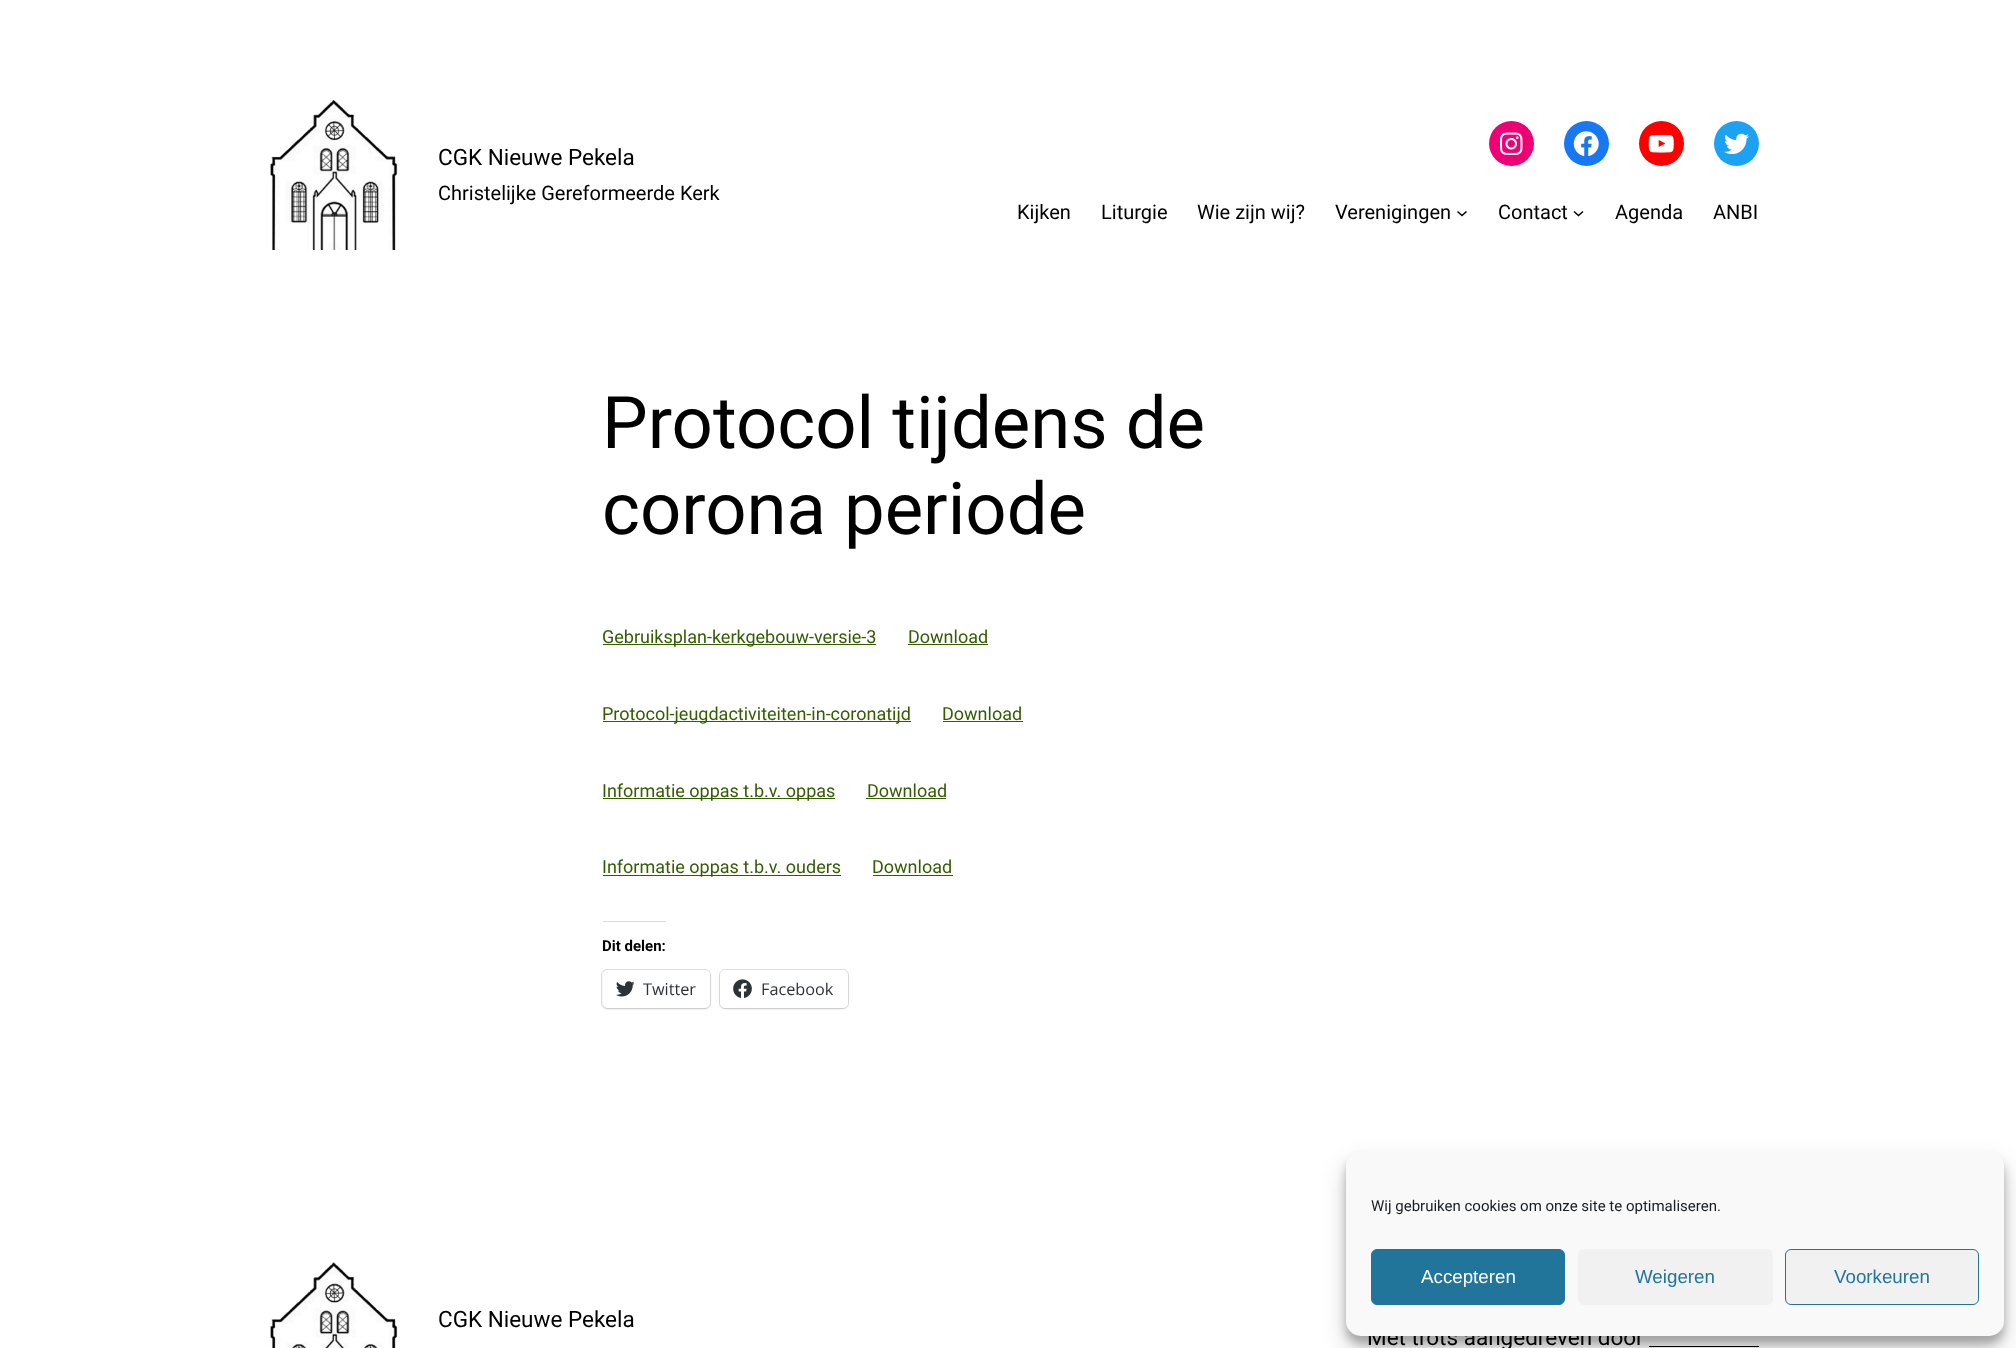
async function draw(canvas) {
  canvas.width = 2016
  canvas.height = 1348
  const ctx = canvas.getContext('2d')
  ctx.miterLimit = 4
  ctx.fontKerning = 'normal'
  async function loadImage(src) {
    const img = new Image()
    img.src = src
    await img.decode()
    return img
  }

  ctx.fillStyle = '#fff'
  ctx.fillRect(0, 0, 2016, 1348)
  ctx.drawImage(await loadImage('image0.png'), 270, 100, 128, 150)
  ctx.font = '22.5px Roboto'
  ctx.fillStyle = '#000'
  ctx.fillText('CGK Nieuwe Pekela', 438, 165)
  ctx.font = '20px Roboto'
  ctx.fillText('Christelijke Gereformeerde Kerk', 438, 200)
  ctx.fillStyle = '#f00075'
  ctx.beginPath()
  ctx.arc(1511.5, 143.5, 22.5, 0, 2 * Math.PI)
  ctx.fill()
  ctx.drawImage(await loadImage('image1.png'), 1500, 132, 23, 23)
  ctx.fillStyle = '#1778f2'
  ctx.beginPath()
  ctx.arc(1586.5, 143.5, 22.5, 0, 2 * Math.PI)
  ctx.fill()
  ctx.drawImage(await loadImage('image2.png'), 1573, 131, 26, 26)
  ctx.fillStyle = '#f00'
  ctx.beginPath()
  ctx.arc(1661.5, 143.5, 22.5, 0, 2 * Math.PI)
  ctx.fill()
  ctx.drawImage(await loadImage('image3.png'), 1648, 134, 26, 19)
  ctx.fillStyle = '#1da1f2'
  ctx.beginPath()
  ctx.arc(1736.5, 143.5, 22.5, 0, 2 * Math.PI)
  ctx.fill()
  ctx.drawImage(await loadImage('image4.png'), 1724, 133, 25, 22)
  ctx.fillStyle = '#000'
  ctx.fillText('Kijken', 1017, 219)
  ctx.fillText('Liturgie', 1101, 219)
  ctx.fillText('Wie zijn wij?', 1197, 219)
  ctx.fillText('Verenigingen', 1335, 219)
  ctx.beginPath()
  ctx.moveTo(1457.5, 211.5)
  ctx.lineTo(1462, 215.5)
  ctx.lineTo(1466.5, 211.5)
  ctx.strokeStyle = '#000'
  ctx.lineWidth = 1.5
  ctx.stroke()
  ctx.fillText('Contact', 1498, 219)
  ctx.beginPath()
  ctx.moveTo(1574, 211.5)
  ctx.lineTo(1578.5, 215.5)
  ctx.lineTo(1583, 211.5)
  ctx.stroke()
  ctx.fillText('Agenda', 1615, 219)
  ctx.fillText('ANBI', 1713, 219)
  ctx.font = '72.5px Roboto'
  ctx.fillText('Protocol tijdens de', 602, 448)
  ctx.fillText('corona periode', 602, 534)
  ctx.fillStyle = '#345c00'
  ctx.fillRect(603, 644, 273, 1)
  ctx.font = '18px Roboto'
  ctx.fillText('Gebruiksplan-kerkgebouw-versie-3', 602, 643)
  ctx.fillText('Download', 908, 643)
  ctx.fillRect(908, 644, 80, 1)
  ctx.fillRect(603, 721, 308, 1)
  ctx.fillText('Protocol-jeugdactiviteiten-in-coronatijd', 602, 720)
  ctx.fillText('Download', 942, 720)
  ctx.fillRect(943, 721, 80, 1)
  ctx.fillRect(603, 798, 232, 1)
  ctx.fillText('Informatie oppas t.b.v. oppas', 602, 797)
  ctx.fillText('Download', 867, 797)
  ctx.fillRect(866, 798, 80, 1)
  ctx.fillRect(603, 875, 238, 1)
  ctx.fillText('Informatie oppas t.b.v. ouders', 602, 873)
  ctx.fillText('Download', 872, 873)
  ctx.fillRect(873, 875, 80, 1)
  ctx.fillStyle = '#dcdcde'
  ctx.fillRect(603, 921, 63, 1)
  ctx.font = 'bold 15px Roboto'
  ctx.fillStyle = '#000'
  ctx.fillText('Dit delen:', 602, 951)
  ctx.beginPath()
  ctx.roundRect(601.5, 969.5, 109, 39, 5.5)
  ctx.strokeStyle = '#e0e0e0'
  ctx.lineWidth = 1
  ctx.stroke()
  ctx.fillStyle = '#0000001f'
  ctx.filter = 'blur(1px)'
  ctx.beginPath()
  ctx.roundRect(603, 971, 107, 38, 5)
  ctx.fill()
  ctx.filter = 'none'
  ctx.fillStyle = '#fff'
  ctx.beginPath()
  ctx.roundRect(603, 970, 107, 38, 5)
  ctx.fill()
  ctx.drawImage(await loadImage('image5.png'), 616, 981, 19, 16)
  ctx.font = '16.25px Open Sans'
  ctx.fillStyle = '#2c3338'
  ctx.fillText('Twitter', 643, 995)
  ctx.beginPath()
  ctx.roundRect(719.5, 969.5, 129, 39, 5.5)
  ctx.stroke()
  ctx.fillStyle = '#0000001f'
  ctx.filter = 'blur(1px)'
  ctx.beginPath()
  ctx.roundRect(720, 971, 128, 38, 5)
  ctx.fill()
  ctx.filter = 'none'
  ctx.fillStyle = '#fff'
  ctx.beginPath()
  ctx.roundRect(720, 970, 128, 38, 5)
  ctx.fill()
  ctx.drawImage(await loadImage('image6.png'), 733, 979, 19, 19)
  ctx.fillStyle = '#2c3338'
  ctx.fillText('Facebook', 761, 995)
  ctx.drawImage(await loadImage('image7.png'), 270, 1262, 128, 86)
  ctx.font = '22.5px Roboto'
  ctx.fillStyle = '#000'
  ctx.fillText('CGK Nieuwe Pekela', 438, 1327)
  ctx.fillText('Met trots aangedreven door', 1367, 1345)
  ctx.fillRect(1649, 1346, 110, 1)
  ctx.fillStyle = '#0000003b'
  ctx.filter = 'blur(4px)'
  ctx.beginPath()
  ctx.roundRect(1346, 1159, 658, 185, 15)
  ctx.fill()
  ctx.filter = 'none'
  ctx.fillStyle = '#00000030'
  ctx.filter = 'blur(12.5px)'
  ctx.beginPath()
  ctx.roundRect(1346, 1164, 658, 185, 15)
  ctx.fill()
  ctx.filter = 'none'
  ctx.fillStyle = '#f9f9f9'
  ctx.beginPath()
  ctx.roundRect(1346, 1151, 658, 185, 15)
  ctx.fill()
  ctx.font = '15px Roboto'
  ctx.fillStyle = '#191e23'
  ctx.fillText('Wij gebruiken cookies om onze site te optimaliseren.', 1371, 1211)
  ctx.fillStyle = '#21759b'
  ctx.beginPath()
  ctx.roundRect(1371.5, 1249.5, 193, 55, 5.5)
  ctx.fill()
  ctx.strokeStyle = '#21759b'
  ctx.stroke()
  ctx.font = '18.75px Liberation Sans'
  ctx.fillStyle = '#fff'
  ctx.fillText('Accepteren', 1421, 1283)
  ctx.fillStyle = '#f1f1f1'
  ctx.beginPath()
  ctx.roundRect(1578, 1249, 195, 56, 6)
  ctx.fill()
  ctx.fillStyle = '#21759b'
  ctx.fillText('Weigeren', 1635, 1283)
  ctx.fillStyle = '#f1f1f1'
  ctx.beginPath()
  ctx.roundRect(1785.5, 1249.5, 193, 55, 5.5)
  ctx.fill()
  ctx.stroke()
  ctx.fillStyle = '#21759b'
  ctx.fillText('Voorkeuren', 1834, 1283)
}

draw(document.querySelector('canvas'))
